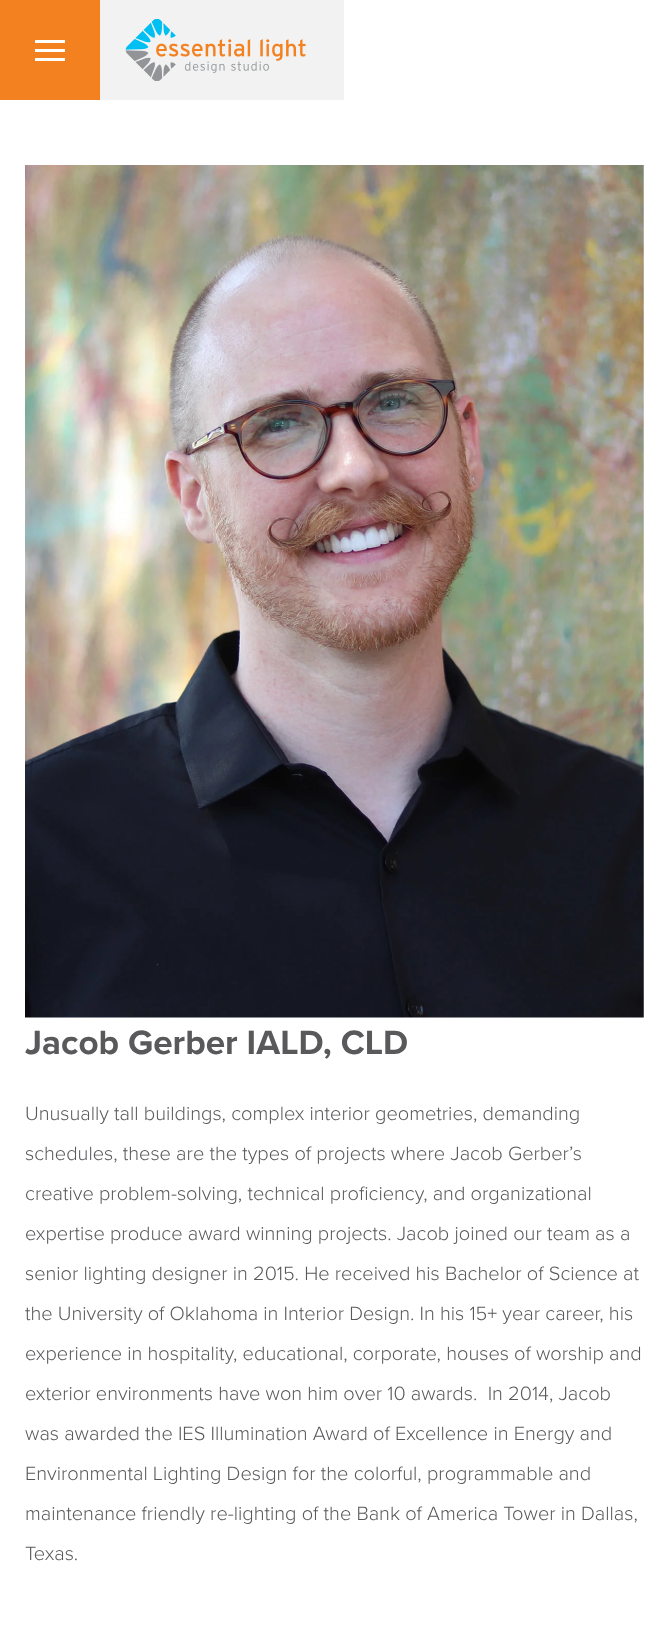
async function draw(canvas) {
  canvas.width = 668
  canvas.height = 1626
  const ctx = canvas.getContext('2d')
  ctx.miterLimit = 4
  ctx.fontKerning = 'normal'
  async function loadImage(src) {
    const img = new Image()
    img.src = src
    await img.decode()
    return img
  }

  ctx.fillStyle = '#fff'
  ctx.fillRect(0, 0, 668, 1626)
  ctx.fillStyle = '#f2f2f2'
  ctx.fillRect(100, 0, 244, 100)
  ctx.fillStyle = '#f48120'
  ctx.fillRect(0, 0, 100, 100)
  ctx.fillStyle = '#fff'
  ctx.fillRect(35, 40, 30, 3)
  ctx.fillRect(35, 49, 30, 3)
  ctx.fillRect(35, 58, 30, 3)
  ctx.drawImage(await loadImage('image0.png'), 125, 19, 181, 62)
  ctx.drawImage(await loadImage('image1.png'), 25, 165, 619, 853)
  ctx.font = 'bold 35px Proxima Nova'
  ctx.fillStyle = '#59595c'
  ctx.fillText('Jacob Gerber IALD, CLD', 25, 1054)
  ctx.font = '300 20px Proxima Nova'
  ctx.fillText('Unusually tall buildings, complex interior geometries, demanding', 25, 1120)
  ctx.fillText('schedules, these are the types of projects where Jacob Gerber’s', 25, 1160)
  ctx.fillText('creative problem-solving, technical proficiency, and organizational', 25, 1200)
  ctx.fillText('expertise produce award winning projects. Jacob joined our team as a', 25, 1240)
  ctx.fillText('senior lighting designer in 2015. He received his Bachelor of Science at', 25, 1280)
  ctx.fillText('the University of Oklahoma in Interior Design. In his 15+ year career, his', 25, 1320)
  ctx.fillText('experience in hospitality, educational, corporate, houses of worship and', 25, 1360)
  ctx.fillText('exterior environments have won him over 10 awards.  In 2014, Jacob', 25, 1400)
  ctx.fillText('was awarded the IES Illumination Award of Excellence in Energy and', 25, 1440)
  ctx.fillText('Environmental Lighting Design for the colorful, programmable and', 25, 1480)
  ctx.fillText('maintenance friendly re-lighting of the Bank of America Tower in Dallas,', 25, 1520)
  ctx.fillText('Texas.', 25, 1560)
}

draw(document.querySelector('canvas'))
